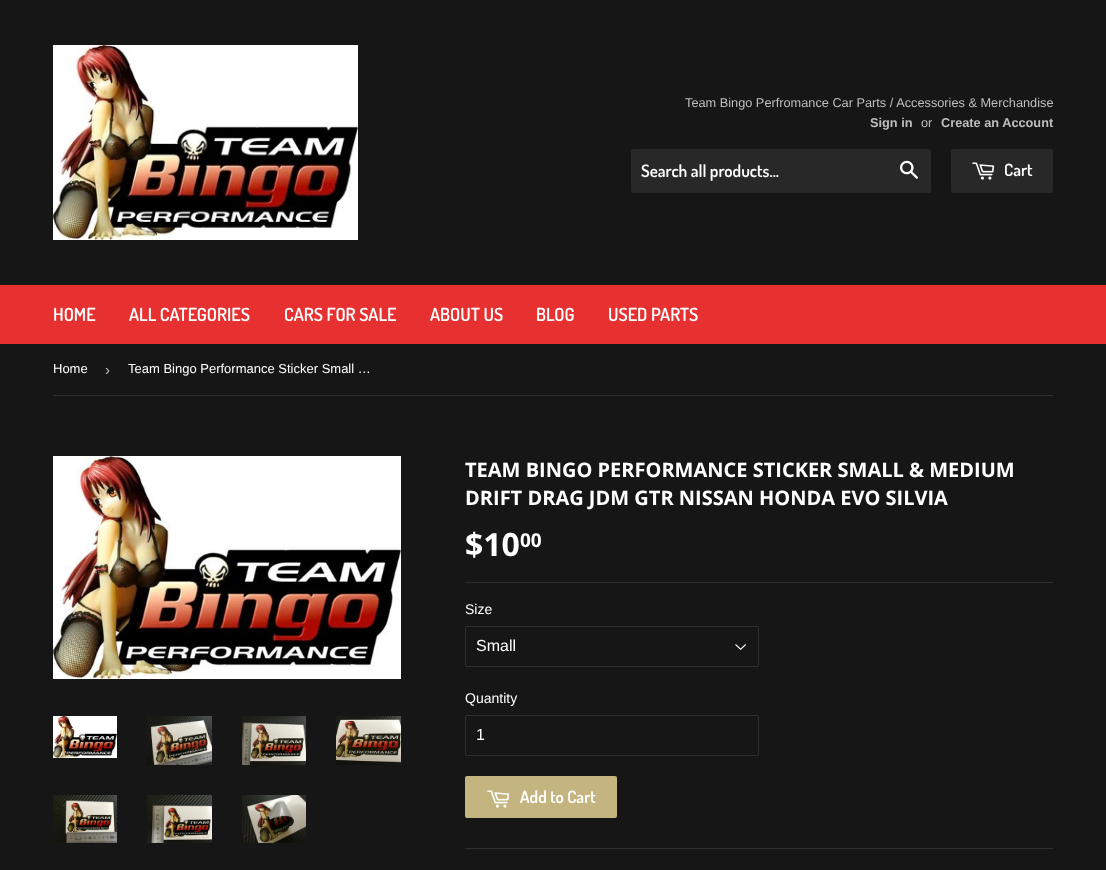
async function draw(canvas) {
  canvas.width = 1106
  canvas.height = 870
  const ctx = canvas.getContext('2d')
  ctx.miterLimit = 4
  ctx.fontKerning = 'normal'
  async function loadImage(src) {
    const img = new Image()
    img.src = src
    await img.decode()
    return img
  }

  ctx.fillStyle = '#161616'
  ctx.fillRect(0, 0, 1106, 870)
  ctx.drawImage(await loadImage('image0.png'), 53, 45, 305, 195)
  ctx.font = '12.75px Liberation Sans'
  ctx.fillStyle = '#bfbfbf'
  ctx.fillText('Team Bingo Perfromance Car Parts / Accessories & Merchandise', 685, 107)
  ctx.font = 'bold 12.75px Liberation Sans'
  ctx.fillText('Sign in', 870, 127)
  ctx.font = '12.75px Liberation Sans'
  ctx.fillText('or', 921, 127)
  ctx.font = 'bold 12.75px Liberation Sans'
  ctx.fillText('Create an Account', 941, 127)
  ctx.fillStyle = '#282828'
  ctx.beginPath()
  ctx.roundRect(631, 149, 300, 44, 2)
  ctx.fill()
  ctx.font = '600 17px Dosis'
  ctx.fillStyle = '#fff'
  ctx.fillText('Search all products...', 641, 177)
  ctx.drawImage(await loadImage('image1.png'), 900, 160, 18, 19)
  ctx.fillStyle = '#282828'
  ctx.beginPath()
  ctx.roundRect(951, 149, 102, 44, 2)
  ctx.fill()
  ctx.drawImage(await loadImage('image2.png'), 972, 162, 23, 18)
  ctx.fillStyle = '#fff'
  ctx.fillText('Cart', 1004, 176)
  ctx.fillStyle = '#e73131'
  ctx.fillRect(0, 285, 1106, 59)
  ctx.font = '600 18px Dosis'
  ctx.fillStyle = '#fff'
  ctx.fillText('HOME', 53, 321)
  ctx.fillText('ALL CATEGORIES', 129, 321)
  ctx.fillText('CARS FOR SALE', 284, 321)
  ctx.fillText('ABOUT US', 430, 321)
  ctx.fillText('BLOG', 536, 321)
  ctx.fillText('USED PARTS', 608, 321)
  ctx.fillStyle = '#2e2e2e'
  ctx.fillRect(53, 395, 1000, 1)
  ctx.font = '13px Liberation Sans'
  ctx.fillStyle = '#fff'
  ctx.fillText('Home', 53, 373)
  ctx.font = '15px Liberation Sans'
  ctx.fillStyle = '#bfbfbf'
  ctx.fillText('›', 105, 375)
  ctx.font = '13px Liberation Sans'
  ctx.fillStyle = '#fff'
  ctx.fillText('Team Bingo Performance Sticker Small …', 128, 373)
  ctx.drawImage(await loadImage('image3.png'), 53, 456, 348, 223)
  ctx.drawImage(await loadImage('image4.png'), 53, 716, 64, 42)
  ctx.drawImage(await loadImage('image5.png'), 147, 716, 65, 49)
  ctx.drawImage(await loadImage('image6.png'), 242, 716, 64, 49)
  ctx.drawImage(await loadImage('image7.png'), 336, 716, 65, 49)
  ctx.drawImage(await loadImage('image8.png'), 53, 795, 64, 48)
  ctx.drawImage(await loadImage('image9.png'), 147, 795, 65, 48)
  ctx.drawImage(await loadImage('image10.png'), 242, 795, 64, 48)
  ctx.font = 'bold 20px Open Sans'
  ctx.fillText('TEAM BINGO PERFORMANCE STICKER SMALL & MEDIUM', 465, 477)
  ctx.fillText('DRIFT DRAG JDM GTR NISSAN HONDA EVO SILVIA', 465, 505)
  ctx.font = 'bold 32px Open Sans'
  ctx.fillText('$10', 465, 556)
  ctx.font = 'bold 19px Open Sans'
  ctx.fillText('00', 520, 547)
  ctx.fillStyle = '#2e2e2e'
  ctx.fillRect(465, 582, 588, 1)
  ctx.font = '14px Liberation Sans'
  ctx.fillStyle = '#fff'
  ctx.fillText('Size', 465, 614)
  ctx.drawImage(await loadImage('image11.png'), 735, 644, 11, 6)
  ctx.beginPath()
  ctx.roundRect(465.5, 626.5, 293, 40, 1.5)
  ctx.strokeStyle = '#2e2e2e'
  ctx.stroke()
  ctx.font = '16px Liberation Sans'
  ctx.fillText('Small', 476, 651)
  ctx.font = '14px Liberation Sans'
  ctx.fillText('Quantity', 465, 703)
  ctx.beginPath()
  ctx.roundRect(465.5, 715.5, 293, 40, 1.5)
  ctx.stroke()
  ctx.font = '16px Liberation Sans'
  ctx.fillText('1', 476, 740)
  ctx.fillStyle = '#c4b47f'
  ctx.beginPath()
  ctx.roundRect(465, 776, 152, 42, 2)
  ctx.fill()
  ctx.drawImage(await loadImage('image12.png'), 487, 790, 23, 18)
  ctx.font = '600 17px Dosis'
  ctx.fillStyle = '#fff'
  ctx.fillText('Add to Cart', 520, 803)
  ctx.fillStyle = '#2e2e2e'
  ctx.fillRect(465, 848, 588, 1)
}

draw(document.querySelector('canvas'))
